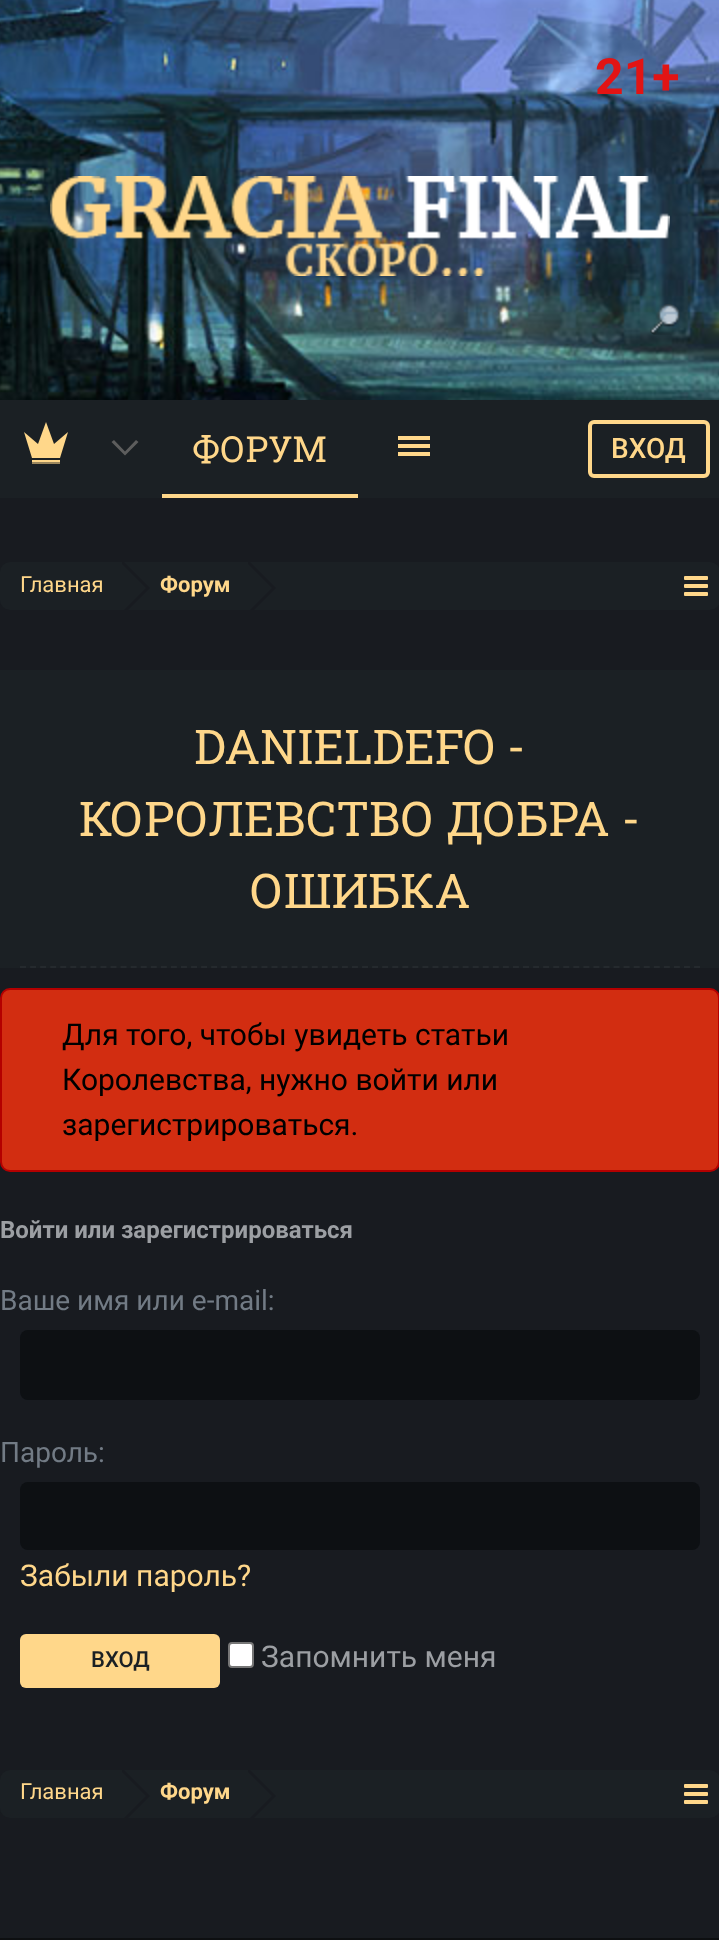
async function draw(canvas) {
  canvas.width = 719
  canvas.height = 1940
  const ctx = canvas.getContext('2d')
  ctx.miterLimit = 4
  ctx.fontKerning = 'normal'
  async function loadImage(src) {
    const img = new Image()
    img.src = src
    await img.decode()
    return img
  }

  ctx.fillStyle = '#0d0f11'
  ctx.fillRect(0, 0, 719, 1940)
  ctx.drawImage(await loadImage('image0.png'), 0, 0, 719, 400)
  ctx.drawImage(await loadImage('image1.png'), 50, 176, 620, 100)
  ctx.font = 'bold 50px Roboto'
  ctx.fillStyle = '#e21414'
  ctx.fillText('21+', 595, 94)
  ctx.drawImage(await loadImage('image2.png'), 650, 304, 30, 31)
  ctx.fillStyle = '#1b2024'
  ctx.fillRect(0, 400, 719, 98)
  ctx.drawImage(await loadImage('image3.png'), 24, 422, 44, 42)
  ctx.fillStyle = '#5d5d5d'
  ctx.beginPath()
  ctx.moveTo(125, 455.5)
  ctx.lineTo(111.5, 442)
  ctx.lineTo(114, 440)
  ctx.lineTo(125, 451.5)
  ctx.lineTo(136, 440)
  ctx.lineTo(138.5, 442)
  ctx.closePath()
  ctx.fill('evenodd')
  ctx.font = '36px Roboto Slab'
  ctx.fillStyle = '#ffd78a'
  ctx.fillText('ФОРУМ', 192, 462)
  ctx.fillRect(162, 494, 196, 4)
  ctx.fillRect(398, 436, 32, 4)
  ctx.fillRect(398, 444, 32, 4)
  ctx.fillRect(398, 452, 32, 4)
  ctx.beginPath()
  ctx.roundRect(590, 422, 118, 54, 4)
  ctx.strokeStyle = '#ffd78a'
  ctx.lineWidth = 4
  ctx.stroke()
  ctx.font = '500 28px Roboto'
  ctx.fillText('ВХОД', 611, 458)
  ctx.fillStyle = '#181b20'
  ctx.fillRect(0, 498, 719, 1440)
  ctx.fillStyle = '#1b2024'
  ctx.beginPath()
  ctx.roundRect(0, 562, 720, 48, 10)
  ctx.fill()
  ctx.font = '22px Roboto'
  ctx.fillStyle = '#ffd78a'
  ctx.fillText('Главная', 20, 592)
  ctx.fillStyle = '#181b20'
  ctx.beginPath()
  ctx.moveTo(124, 562)
  ctx.lineTo(150, 588)
  ctx.lineTo(128, 610)
  ctx.lineTo(122, 610)
  ctx.lineTo(122, 562)
  ctx.closePath()
  ctx.fill()
  ctx.fillStyle = '#1b2024'
  ctx.beginPath()
  ctx.moveTo(124, 610)
  ctx.lineTo(122, 610)
  ctx.lineTo(122, 564)
  ctx.lineTo(146, 588)
  ctx.closePath()
  ctx.fill()
  ctx.font = 'bold 22px Roboto'
  ctx.fillStyle = '#ffd78a'
  ctx.fillText('Форум', 160, 592)
  ctx.fillStyle = '#181b20'
  ctx.beginPath()
  ctx.moveTo(250, 562)
  ctx.lineTo(276, 588)
  ctx.lineTo(254, 610)
  ctx.lineTo(248, 610)
  ctx.lineTo(248, 562)
  ctx.closePath()
  ctx.fill()
  ctx.fillStyle = '#1b2024'
  ctx.beginPath()
  ctx.moveTo(250, 610)
  ctx.lineTo(248, 610)
  ctx.lineTo(248, 564)
  ctx.lineTo(272, 588)
  ctx.closePath()
  ctx.fill()
  ctx.drawImage(await loadImage('image4.png'), 684, 576, 24, 20)
  ctx.fillRect(0, 670, 719, 298)
  ctx.beginPath()
  ctx.moveTo(20, 967)
  ctx.lineTo(700, 967)
  ctx.strokeStyle = '#252a2e'
  ctx.lineWidth = 2
  ctx.setLineDash([6, 4.06])
  ctx.stroke()
  ctx.font = '48px Roboto Slab'
  ctx.fillStyle = '#ffd78a'
  ctx.fillText('DANIELDEFO -', 194, 764)
  ctx.fillText('КОРОЛЕВСТВО ДОБРА -', 79, 836)
  ctx.fillText('ОШИБКА', 250, 908)
  ctx.fillStyle = '#d22d11'
  ctx.beginPath()
  ctx.roundRect(1, 989, 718, 182, 9)
  ctx.fill()
  ctx.strokeStyle = '#b40000'
  ctx.setLineDash([])
  ctx.stroke()
  ctx.font = '30px Roboto'
  ctx.fillStyle = '#000'
  ctx.fillText('Для того, чтобы увидеть статьи', 62, 1045)
  ctx.fillText('Королевства, нужно войти или', 62, 1090)
  ctx.fillText('зарегистрироваться.', 62, 1135)
  ctx.font = 'bold 24px Roboto'
  ctx.fillStyle = '#9c9fa3'
  ctx.fillText('Войти или зарегистрироваться', 0, 1238)
  ctx.font = '28px Roboto'
  ctx.fillStyle = '#727b85'
  ctx.fillText('Ваше имя или e-mail:', 0, 1310)
  ctx.fillStyle = '#0d1013'
  ctx.beginPath()
  ctx.roundRect(20, 1330, 680, 70, 8)
  ctx.fill()
  ctx.fillStyle = '#727b85'
  ctx.fillText('Пароль:', 0, 1462)
  ctx.fillStyle = '#0d1013'
  ctx.beginPath()
  ctx.roundRect(20, 1482, 680, 68, 8)
  ctx.fill()
  ctx.font = '30px Roboto'
  ctx.fillStyle = '#ffd78a'
  ctx.fillText('Забыли пароль?', 20, 1586)
  ctx.beginPath()
  ctx.roundRect(20, 1634, 200, 54, 6)
  ctx.fill()
  ctx.font = '500 22px Roboto'
  ctx.fillStyle = '#1b2024'
  ctx.fillText('ВХОД', 91, 1667)
  ctx.fillStyle = '#fff'
  ctx.beginPath()
  ctx.roundRect(229, 1643, 24, 24, 3)
  ctx.fill()
  ctx.strokeStyle = '#767676'
  ctx.stroke()
  ctx.font = '30px Roboto'
  ctx.fillStyle = '#9c9fa3'
  ctx.fillText('Запомнить меня', 261, 1667)
  ctx.fillStyle = '#1b2024'
  ctx.beginPath()
  ctx.roundRect(0, 1770, 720, 48, 10)
  ctx.fill()
  ctx.font = '22px Roboto'
  ctx.fillStyle = '#ffd78a'
  ctx.fillText('Главная', 20, 1799)
  ctx.fillStyle = '#181b20'
  ctx.beginPath()
  ctx.moveTo(124, 1770)
  ctx.lineTo(150, 1796)
  ctx.lineTo(128, 1818)
  ctx.lineTo(122, 1818)
  ctx.lineTo(122, 1770)
  ctx.closePath()
  ctx.fill()
  ctx.fillStyle = '#1b2024'
  ctx.beginPath()
  ctx.moveTo(124, 1818)
  ctx.lineTo(122, 1818)
  ctx.lineTo(122, 1772)
  ctx.lineTo(146, 1796)
  ctx.closePath()
  ctx.fill()
  ctx.font = 'bold 22px Roboto'
  ctx.fillStyle = '#ffd78a'
  ctx.fillText('Форум', 160, 1799)
  ctx.fillStyle = '#181b20'
  ctx.beginPath()
  ctx.moveTo(250, 1770)
  ctx.lineTo(276, 1796)
  ctx.lineTo(254, 1818)
  ctx.lineTo(248, 1818)
  ctx.lineTo(248, 1770)
  ctx.closePath()
  ctx.fill()
  ctx.fillStyle = '#1b2024'
  ctx.beginPath()
  ctx.moveTo(250, 1818)
  ctx.lineTo(248, 1818)
  ctx.lineTo(248, 1772)
  ctx.lineTo(272, 1796)
  ctx.closePath()
  ctx.fill()
  ctx.drawImage(await loadImage('image4.png'), 684, 1784, 24, 20)
}

draw(document.querySelector('canvas'))
